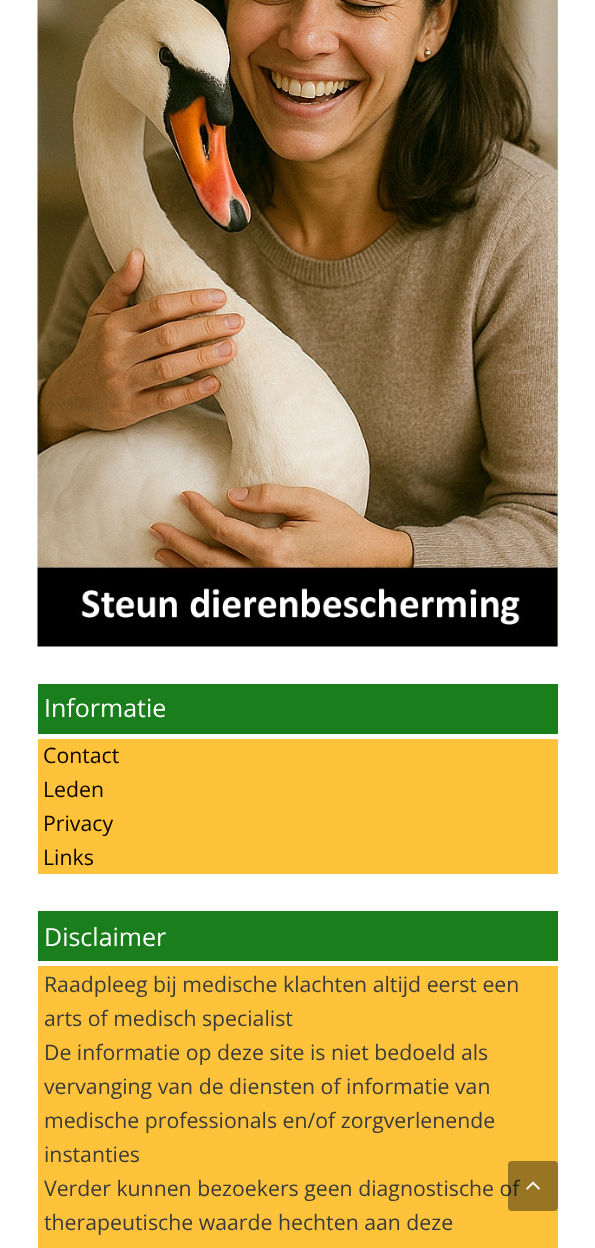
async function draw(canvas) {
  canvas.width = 595
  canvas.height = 1248
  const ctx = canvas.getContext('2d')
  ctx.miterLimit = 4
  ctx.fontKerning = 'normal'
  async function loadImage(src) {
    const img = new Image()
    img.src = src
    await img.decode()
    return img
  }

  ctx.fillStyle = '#fff'
  ctx.fillRect(0, 0, 595, 1248)
  ctx.fillStyle = '#fec33b'
  ctx.fillRect(557, 0, 1, 646)
  ctx.drawImage(await loadImage('image0.png'), 37, 0, 521, 647)
  ctx.fillStyle = '#1a7e1c'
  ctx.fillRect(38, 684, 520, 50)
  ctx.font = '25px Open Sans'
  ctx.fillStyle = '#fff'
  ctx.fillText('Informatie', 44, 717)
  ctx.fillStyle = '#fec33b'
  ctx.fillRect(38, 739, 520, 135)
  ctx.font = '21.25px Open Sans'
  ctx.fillStyle = '#0a0000'
  ctx.fillText('Contact', 43, 763)
  ctx.fillText('Leden', 43, 797)
  ctx.fillText('Privacy', 43, 831)
  ctx.fillText('Links', 43, 865)
  ctx.fillStyle = '#1a7e1c'
  ctx.fillRect(38, 911, 520, 50)
  ctx.font = '25px Open Sans'
  ctx.fillStyle = '#fff'
  ctx.fillText('Disclaimer', 44, 946)
  ctx.fillStyle = '#fec33b'
  ctx.fillRect(38, 966, 520, 282)
  ctx.font = '21.25px Open Sans'
  ctx.fillStyle = '#3a3a3a'
  ctx.fillText('Raadpleeg bij medische klachten altijd eerst een', 44, 992)
  ctx.fillText('arts of medisch specialist', 44, 1026)
  ctx.fillText('De informatie op deze site is niet bedoeld als', 44, 1060)
  ctx.fillText('vervanging van de diensten of informatie van', 44, 1094)
  ctx.fillText('medische professionals en/of zorgverlenende', 44, 1128)
  ctx.fillText('instanties', 44, 1162)
  ctx.fillText('Verder kunnen bezoekers geen diagnostische of', 44, 1196)
  ctx.fillText('therapeutische waarde hechten aan deze', 44, 1230)
  ctx.fillStyle = '#00000066'
  ctx.beginPath()
  ctx.roundRect(508, 1161, 50, 50, 4)
  ctx.fill()
  ctx.drawImage(await loadImage('image1.png'), 526, 1181, 14, 9)
}

draw(document.querySelector('canvas'))
